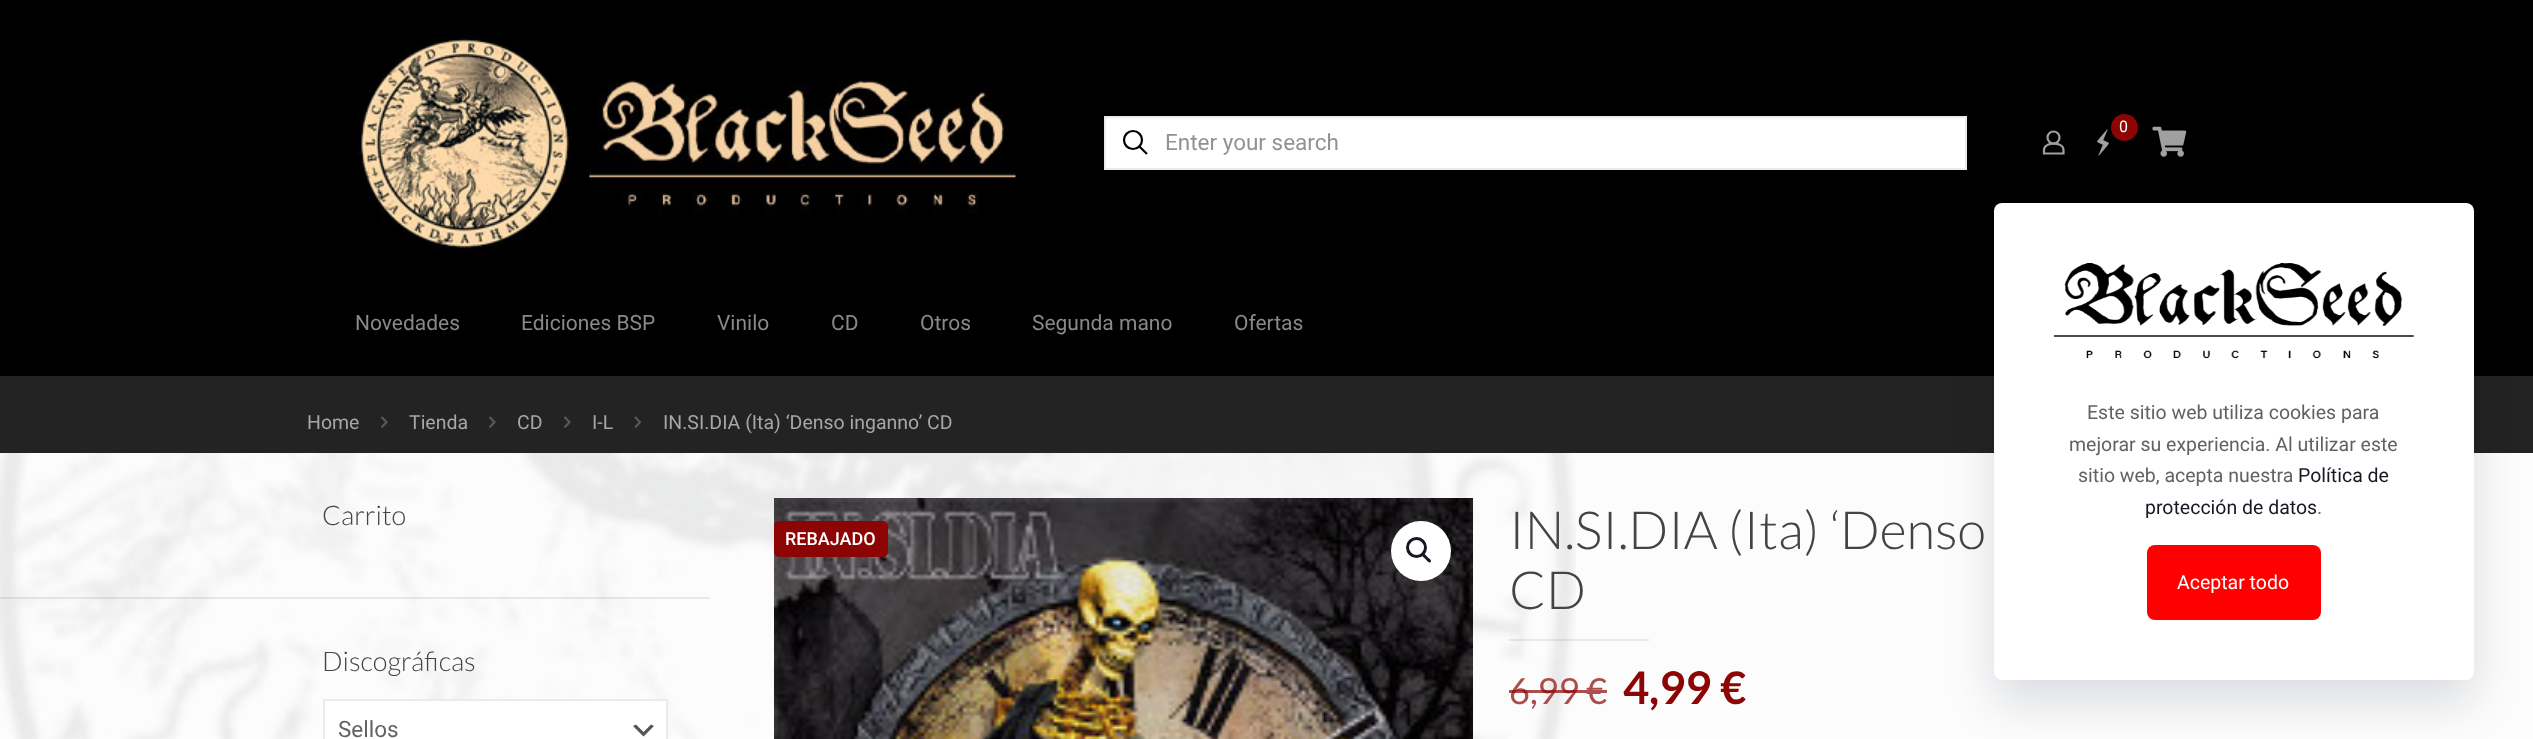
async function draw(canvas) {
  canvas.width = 2533
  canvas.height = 739
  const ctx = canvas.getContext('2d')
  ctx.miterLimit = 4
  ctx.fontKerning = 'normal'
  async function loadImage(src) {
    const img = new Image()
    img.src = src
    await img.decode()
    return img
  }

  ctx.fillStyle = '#fcfcfc'
  ctx.fillRect(0, 0, 2533, 739)
  ctx.drawImage(await loadImage('image0.png'), 0, 453, 1576, 286)
  ctx.fillStyle = '#000'
  ctx.fillRect(0, 0, 2533, 376)
  ctx.drawImage(await loadImage('image1.png'), 355, 34, 661, 217)
  ctx.fillStyle = '#fff'
  ctx.beginPath()
  ctx.rect(1105, 117, 861, 52)
  ctx.fill()
  ctx.strokeStyle = '#ebebeb'
  ctx.lineWidth = 2
  ctx.stroke()
  ctx.beginPath()
  ctx.arc(1133, 140, 9, 0, 2 * Math.PI)
  ctx.strokeStyle = '#000'
  ctx.lineWidth = 2.2
  ctx.stroke()
  ctx.beginPath()
  ctx.moveTo(1139.5, 146.5)
  ctx.lineTo(1147, 154)
  ctx.stroke()
  ctx.font = '22.5px Roboto'
  ctx.fillStyle = '#929292'
  ctx.fillText('Enter your search', 1165, 150)
  ctx.beginPath()
  ctx.arc(2053.5, 137.5, 6, 0, 2 * Math.PI)
  ctx.strokeStyle = '#a0a0a0'
  ctx.stroke()
  ctx.beginPath()
  ctx.moveTo(2063.5, 150)
  ctx.lineTo(2063.5, 153.5)
  ctx.lineTo(2044, 153.5)
  ctx.lineTo(2044, 149)
  ctx.bezierCurveTo(2046, 141.5, 2063.5, 142, 2063.5, 150)
  ctx.closePath()
  ctx.stroke()
  ctx.fillStyle = '#8c0404'
  ctx.beginPath()
  ctx.arc(2124.5, 127.5, 13.5, 0, 2 * Math.PI)
  ctx.fill()
  ctx.font = '16px Roboto'
  ctx.fillStyle = '#fff'
  ctx.fillText('0', 2119, 132)
  ctx.drawImage(await loadImage('image2.png'), 2097, 129, 12, 27)
  ctx.drawImage(await loadImage('image3.png'), 2152, 126, 35, 31)
  ctx.font = '21px Roboto'
  ctx.fillStyle = '#898989'
  ctx.fillText('Novedades', 355, 330)
  ctx.fillText('Ediciones BSP', 521, 330)
  ctx.fillText('Vinilo', 717, 330)
  ctx.fillText('CD', 831, 330)
  ctx.fillText('Otros', 920, 330)
  ctx.fillText('Segunda mano', 1032, 330)
  ctx.fillText('Ofertas', 1234, 330)
  ctx.fillStyle = '#232323'
  ctx.fillRect(0, 376, 2533, 77)
  ctx.font = '19.5px Roboto'
  ctx.fillStyle = '#a7a7a7'
  ctx.fillText('Home', 307, 429)
  ctx.drawImage(await loadImage('image4.png'), 381, 416, 7, 12)
  ctx.fillText('Tienda', 409, 429)
  ctx.drawImage(await loadImage('image4.png'), 489, 416, 7, 12)
  ctx.fillText('CD', 517, 429)
  ctx.drawImage(await loadImage('image4.png'), 564, 416, 7, 12)
  ctx.fillText('I-L', 592, 429)
  ctx.drawImage(await loadImage('image5.png'), 634, 416, 7, 12)
  ctx.fillText('IN.SI.DIA (Ita) ‘Denso inganno’ CD', 663, 429)
  ctx.font = '300 27px Lato'
  ctx.fillStyle = '#444'
  ctx.fillText('Carrito', 322, 525)
  ctx.fillStyle = '#00000014'
  ctx.fillRect(0, 597, 710, 2)
  ctx.fillStyle = '#444'
  ctx.fillText('Discográficas', 322, 671)
  ctx.fillStyle = '#fff'
  ctx.fillRect(325, 701, 341, 38)
  ctx.fillStyle = '#555'
  ctx.beginPath()
  ctx.moveTo(636, 724.5)
  ctx.lineTo(643.5, 732)
  ctx.lineTo(651, 724.5)
  ctx.lineTo(654, 726)
  ctx.lineTo(643.5, 736.5)
  ctx.lineTo(633, 726)
  ctx.closePath()
  ctx.fill()
  ctx.strokeStyle = '#ebebeb'
  ctx.lineWidth = 2
  ctx.strokeRect(324, 700, 343, 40)
  ctx.font = '22.5px Roboto'
  ctx.fillStyle = '#626262'
  ctx.fillText('Sellos', 338, 737)
  ctx.drawImage(await loadImage('image6.png'), 774, 498, 699, 241)
  ctx.fillStyle = '#8c0404'
  ctx.beginPath()
  ctx.roundRect(774, 521, 114, 36, 5)
  ctx.fill()
  ctx.font = '500 18px Roboto'
  ctx.fillStyle = '#fff'
  ctx.fillText('REBAJADO', 785, 545)
  ctx.beginPath()
  ctx.arc(1421, 551, 30, 0, 2 * Math.PI)
  ctx.fill()
  ctx.beginPath()
  ctx.arc(1416.5, 547.5, 9, 0, 2 * Math.PI)
  ctx.strokeStyle = '#161922'
  ctx.lineWidth = 3
  ctx.stroke()
  ctx.fillStyle = '#161922'
  ctx.beginPath()
  ctx.moveTo(1422.5, 554)
  ctx.bezierCurveTo(1424, 552, 1426.5, 556, 1427.5, 557)
  ctx.bezierCurveTo(1428.5, 558, 1432.5, 560.5, 1430.5, 562)
  ctx.bezierCurveTo(1429, 564, 1426.5, 560, 1425.5, 559)
  ctx.bezierCurveTo(1424.5, 558, 1420.5, 555.5, 1422.5, 554)
  ctx.closePath()
  ctx.fill()
  ctx.font = '300 52.5px Lato'
  ctx.fillStyle = '#444'
  ctx.fillText('IN.SI.DIA (Ita) ‘Denso', 1509, 549)
  ctx.fillText('CD', 1509, 609)
  ctx.fillStyle = '#00000014'
  ctx.fillRect(1509, 639, 140, 2)
  ctx.font = '36px Lato'
  ctx.fillStyle = '#ac4d4d'
  ctx.fillText('6,99', 1509, 704)
  ctx.fillText('€', 1586, 704)
  ctx.fillStyle = '#8c0404b3'
  ctx.fillRect(1509, 690, 77, 3)
  ctx.fillStyle = '#ae4e4e'
  ctx.fillRect(1586, 690, 21, 3)
  ctx.font = 'bold 45px Lato'
  ctx.fillStyle = '#8c0404'
  ctx.fillText('4,99 €', 1623, 704)
  ctx.fillStyle = '#01072721'
  ctx.filter = 'blur(22.5px)'
  ctx.beginPath()
  ctx.roundRect(1994, 225, 480, 477, 8)
  ctx.fill()
  ctx.filter = 'none'
  ctx.fillStyle = '#fff'
  ctx.beginPath()
  ctx.roundRect(1994, 203, 480, 477, 8)
  ctx.fill()
  ctx.drawImage(await loadImage('image7.png'), 2054, 263, 360, 96)
  ctx.font = '19.5px Roboto'
  ctx.fillStyle = '#626262'
  ctx.fillText('Este sitio web utiliza cookies para', 2087, 419)
  ctx.fillText('mejorar su experiencia. Al utilizar este', 2069, 451)
  ctx.fillText('sitio web, acepta nuestra', 2078, 482)
  ctx.fillStyle = '#161922'
  ctx.fillText('Política de', 2298, 482)
  ctx.fillText('protección de datos', 2145, 514)
  ctx.fillStyle = '#626262'
  ctx.fillText('.', 2317, 514)
  ctx.fillStyle = '#f00'
  ctx.beginPath()
  ctx.roundRect(2147, 545, 174, 75, 8)
  ctx.fill()
  ctx.fillStyle = '#fff'
  ctx.fillText('Aceptar todo', 2177, 589)
}

draw(document.querySelector('canvas'))
